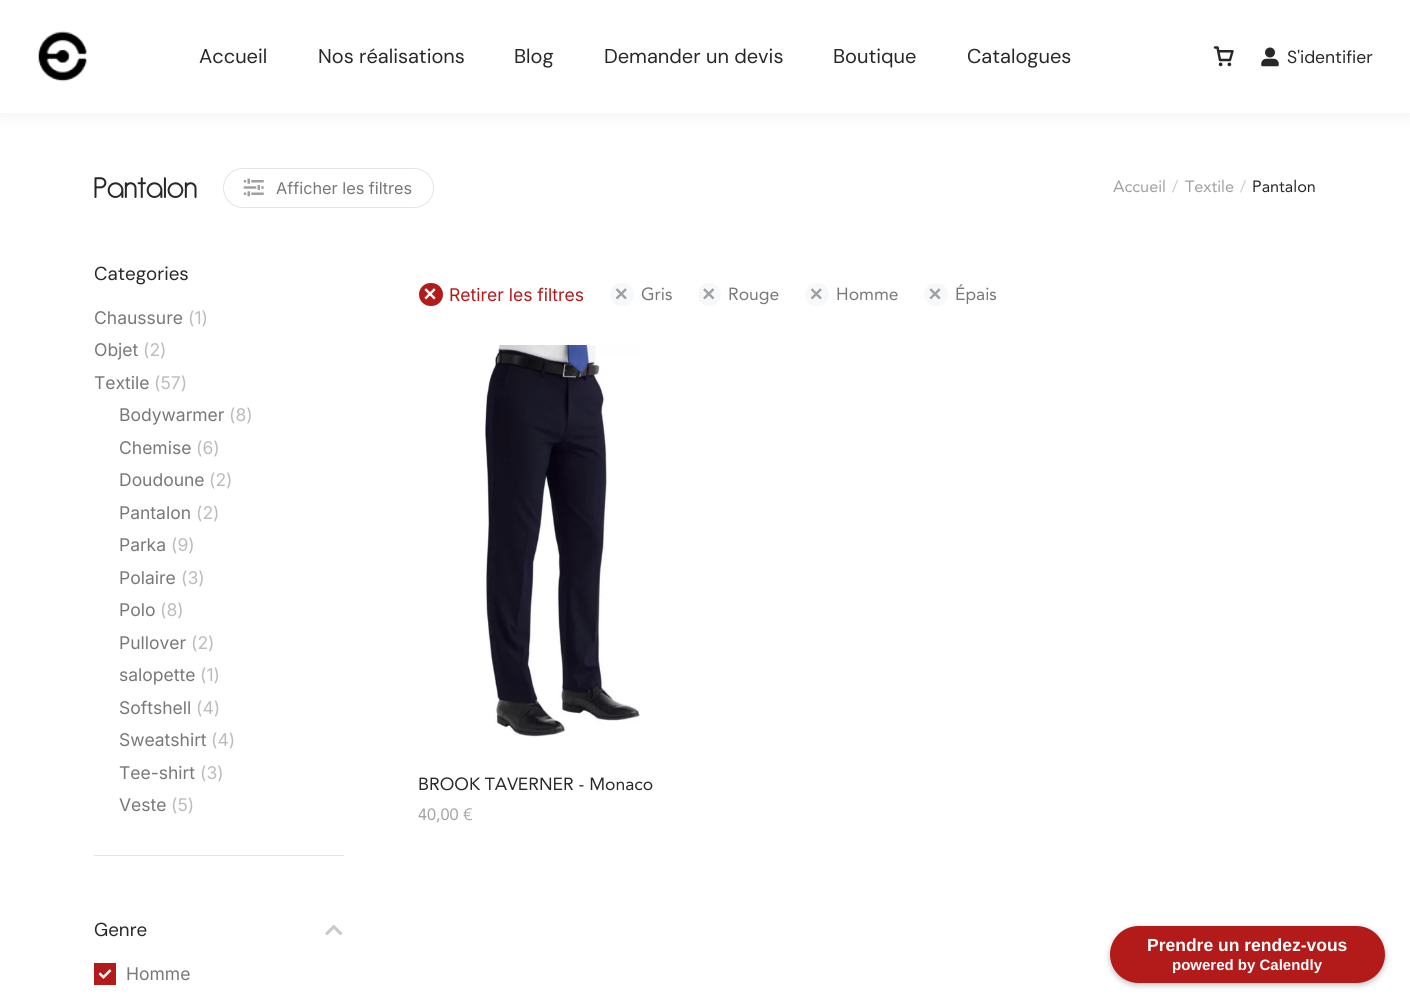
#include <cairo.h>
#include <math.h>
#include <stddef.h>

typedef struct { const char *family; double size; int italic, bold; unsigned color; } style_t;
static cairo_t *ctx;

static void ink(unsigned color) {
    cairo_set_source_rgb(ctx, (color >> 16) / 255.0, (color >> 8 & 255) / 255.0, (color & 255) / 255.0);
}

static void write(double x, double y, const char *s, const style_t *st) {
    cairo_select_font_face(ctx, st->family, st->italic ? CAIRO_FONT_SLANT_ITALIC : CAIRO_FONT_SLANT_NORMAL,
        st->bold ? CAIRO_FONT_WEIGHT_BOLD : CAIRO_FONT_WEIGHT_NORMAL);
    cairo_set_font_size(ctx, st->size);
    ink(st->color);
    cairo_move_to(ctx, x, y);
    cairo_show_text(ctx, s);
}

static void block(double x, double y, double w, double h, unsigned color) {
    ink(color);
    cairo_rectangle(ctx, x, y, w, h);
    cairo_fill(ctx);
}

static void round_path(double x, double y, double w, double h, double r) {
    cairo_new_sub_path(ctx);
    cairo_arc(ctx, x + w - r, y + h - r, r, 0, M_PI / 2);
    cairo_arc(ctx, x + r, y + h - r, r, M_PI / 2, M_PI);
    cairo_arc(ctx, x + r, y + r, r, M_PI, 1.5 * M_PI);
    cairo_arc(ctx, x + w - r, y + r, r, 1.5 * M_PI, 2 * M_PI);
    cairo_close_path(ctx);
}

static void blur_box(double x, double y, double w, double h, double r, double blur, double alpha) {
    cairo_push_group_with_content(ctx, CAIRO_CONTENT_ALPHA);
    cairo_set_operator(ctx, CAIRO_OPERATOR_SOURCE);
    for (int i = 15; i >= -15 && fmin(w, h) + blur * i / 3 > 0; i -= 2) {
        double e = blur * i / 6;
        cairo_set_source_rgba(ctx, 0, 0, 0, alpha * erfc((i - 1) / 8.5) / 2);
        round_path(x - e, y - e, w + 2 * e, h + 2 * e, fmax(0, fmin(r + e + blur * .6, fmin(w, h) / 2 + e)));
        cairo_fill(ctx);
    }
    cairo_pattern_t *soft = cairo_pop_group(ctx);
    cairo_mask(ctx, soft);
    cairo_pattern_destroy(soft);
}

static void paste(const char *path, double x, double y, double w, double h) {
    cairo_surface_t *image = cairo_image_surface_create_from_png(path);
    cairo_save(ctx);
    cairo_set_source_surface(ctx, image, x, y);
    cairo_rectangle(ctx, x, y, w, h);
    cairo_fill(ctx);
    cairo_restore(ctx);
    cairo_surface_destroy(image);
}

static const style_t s1 = {"DM Sans", 20, 0, 0, 0x282828};
static const style_t s2 = {"DM Sans", 17.5, 0, 0, 0x282828};
static const style_t s3 = {"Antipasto", 32.5, 0, 0, 0x282828};
static const style_t s4 = {"Inter", 16.25, 0, 0, 0x787878};
static const style_t s5 = {"Avenir", 16.25, 0, 0, 0xa0a0a0};
static const style_t s6 = {"Avenir", 16.25, 0, 0, 0xc8cacb};
static const style_t s7 = {"Avenir", 16.25, 0, 0, 0x282828};
static const style_t s8 = {"DM Sans", 18.75, 0, 0, 0x282828};
static const style_t s9 = {"Inter", 17.5, 0, 0, 0x787878};
static const style_t s10 = {"Inter", 17.5, 0, 0, 0xbcbcbc};
static const style_t s11 = {"Inter", 17.5, 0, 0, 0xb31b1b};
static const style_t s12 = {"Avenir", 17.5, 0, 0, 0x787878};
static const style_t s13 = {"Avenir", 17.5, 0, 0, 0x282828};
static const style_t s14 = {"Liberation Sans", 17.5, 0, 1, 0xffffff};
static const style_t s15 = {"Liberation Sans", 15, 0, 1, 0xffffff};

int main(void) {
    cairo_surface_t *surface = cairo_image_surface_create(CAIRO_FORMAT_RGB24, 1410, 1001);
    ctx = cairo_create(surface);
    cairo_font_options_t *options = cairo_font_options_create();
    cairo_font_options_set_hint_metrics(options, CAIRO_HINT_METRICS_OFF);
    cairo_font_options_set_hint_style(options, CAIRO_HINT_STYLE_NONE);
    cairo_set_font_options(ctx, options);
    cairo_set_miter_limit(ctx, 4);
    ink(0xffffff);
    cairo_paint(ctx);
    ink(0x000000);
    blur_box(-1, -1, 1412, 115, 0, 9.5, 0.07);
    block(0, 0, 1410, 113, 0xffffff);
    paste("pic1.png", 38, 31, 49, 51);
    write(199, 63, "Accueil", &s1);
    write(318, 63, "Nos réalisations", &s1);
    write(514, 63, "Blog", &s1);
    write(604, 63, "Demander un devis", &s1);
    write(833, 63, "Boutique", &s1);
    write(967, 63, "Catalogues", &s1);
    paste("pic2.png", 1213, 46, 21, 21);
    paste("pic3.png", 1261, 47, 18, 20);
    write(1287, 63, "S'identifier", &s2);
    write(94, 198, "Pantalon", &s3);
    round_path(223.5, 168.5, 210, 39, 19.5);
    ink(0xe0e5e7);
    cairo_set_line_width(ctx, 1);
    cairo_stroke(ctx);
    paste("pic4.png", 243, 178, 21, 19);
    write(276, 194, "Afficher les filtres", &s4);
    write(1113, 192, "Accueil", &s5);
    write(1172, 192, "/", &s6);
    write(1185, 192, "Textile", &s5);
    write(1240, 192, "/", &s6);
    write(1252, 192, "Pantalon", &s7);
    block(94, 855, 250, 1, 0xe0e5e7);
    write(94, 280, "Categories", &s8);
    write(94, 324, "Chaussure", &s9);
    write(188, 324, "(1)", &s10);
    write(94, 356, "Objet", &s9);
    write(143, 356, "(2)", &s10);
    write(94, 389, "Textile", &s9);
    write(154, 389, "(57)", &s10);
    write(119, 421, "Bodywarmer", &s9);
    write(229, 421, "(8)", &s10);
    write(119, 454, "Chemise", &s9);
    write(196, 454, "(6)", &s10);
    write(119, 486, "Doudoune", &s9);
    write(209, 486, "(2)", &s10);
    write(119, 519, "Pantalon", &s9);
    write(196, 519, "(2)", &s10);
    write(119, 551, "Parka", &s9);
    write(171, 551, "(9)", &s10);
    write(119, 584, "Polaire", &s9);
    write(181, 584, "(3)", &s10);
    write(119, 616, "Polo", &s9);
    write(160, 616, "(8)", &s10);
    write(119, 649, "Pullover", &s9);
    write(191, 649, "(2)", &s10);
    write(119, 681, "salopette", &s9);
    write(200, 681, "(1)", &s10);
    write(119, 714, "Softshell", &s9);
    write(196, 714, "(4)", &s10);
    write(119, 746, "Sweatshirt", &s9);
    write(211, 746, "(4)", &s10);
    write(119, 779, "Tee-shirt", &s9);
    write(200, 779, "(3)", &s10);
    write(119, 811, "Veste", &s9);
    write(171, 811, "(5)", &s10);
    write(94, 936, "Genre", &s8);
    paste("pic5.png", 325, 924, 18, 12);
    block(94, 963, 22, 22, 0xb31b1b);
    paste("pic6.png", 98, 969, 14, 10);
    write(126, 980, "Homme", &s9);
    ink(0xb31b1b);
    round_path(419, 283, 24, 23, 11.5);
    cairo_fill(ctx);
    paste("pic7.png", 424, 288, 12, 12);
    write(449, 301, "Retirer les filtres", &s11);
    ink(0xf6f8f9);
    round_path(610, 283, 24, 23, 11.5);
    cairo_fill(ctx);
    paste("pic8.png", 615, 288, 12, 12);
    write(641, 300, "Gris", &s12);
    ink(0xf6f8f9);
    cairo_new_path(ctx);
    cairo_arc(ctx, 709.5, 294.5, 11.5, 0, 2 * M_PI);
    cairo_fill(ctx);
    paste("pic9.png", 703, 288, 12, 12);
    write(728, 300, "Rouge", &s12);
    ink(0xf6f8f9);
    round_path(805, 283, 24, 23, 11.5);
    cairo_fill(ctx);
    paste("pic8.png", 810, 288, 12, 12);
    write(836, 300, "Homme", &s12);
    ink(0xf6f8f9);
    round_path(924, 283, 24, 23, 11.5);
    cairo_fill(ctx);
    paste("pic10.png", 929, 288, 12, 12);
    write(955, 300, "Épais", &s12);
    paste("pic11.png", 484, 345, 156, 392);
    write(418, 790, "BROOK TAVERNER - Monaco", &s13);
    write(418, 820, "40,00 €", &s5);
    ink(0x000000);
    blur_box(1110, 929, 275, 56, 28, 3, 0.25);
    ink(0xb31b1b);
    round_path(1110, 926, 275, 57, 28.5);
    cairo_fill(ctx);
    write(1147, 951, "Prendre un rendez-vous", &s14);
    write(1172, 970, "powered by Calendly", &s15);
    cairo_surface_write_to_png(surface, "screenshot.png");
    cairo_font_options_destroy(options);
    cairo_destroy(ctx);
    cairo_surface_destroy(surface);
    return 0;
}
